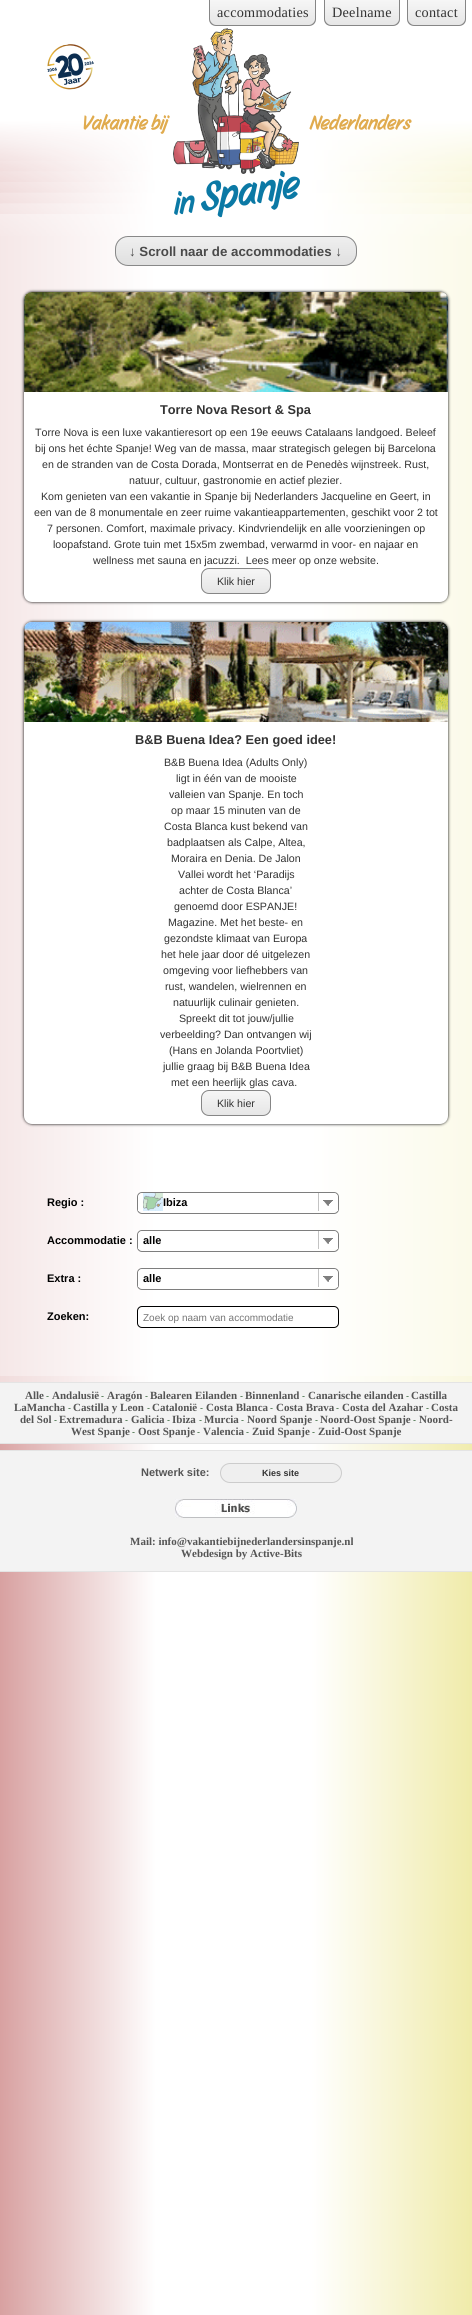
#include <cairo.h>
#include <math.h>
#include <stddef.h>

typedef struct { const char *family; double size; int italic, bold; unsigned color; } style_t;
static cairo_t *ctx;

static void ink(unsigned color) {
    cairo_set_source_rgb(ctx, (color >> 16) / 255.0, (color >> 8 & 255) / 255.0, (color & 255) / 255.0);
}

static void write(double x, double y, const char *s, const style_t *st) {
    cairo_select_font_face(ctx, st->family, st->italic ? CAIRO_FONT_SLANT_ITALIC : CAIRO_FONT_SLANT_NORMAL,
        st->bold ? CAIRO_FONT_WEIGHT_BOLD : CAIRO_FONT_WEIGHT_NORMAL);
    cairo_set_font_size(ctx, st->size);
    ink(st->color);
    cairo_move_to(ctx, x, y);
    cairo_show_text(ctx, s);
}

static void write_spaced(double x, double y, const char *s, double letter, double word) {
    cairo_move_to(ctx, x, y);
    while (*s) {
        char ch[5] = {0};
        int n = 0;
        do ch[n++] = *s++; while ((*s & 0xC0) == 0x80);
        cairo_show_text(ctx, ch);
        cairo_rel_move_to(ctx, letter + word * (*ch == ' '), 0);
    }
}

static void block(double x, double y, double w, double h, unsigned color) {
    ink(color);
    cairo_rectangle(ctx, x, y, w, h);
    cairo_fill(ctx);
}

static void round_path(double x, double y, double w, double h, double r) {
    cairo_new_sub_path(ctx);
    cairo_arc(ctx, x + w - r, y + h - r, r, 0, M_PI / 2);
    cairo_arc(ctx, x + r, y + h - r, r, M_PI / 2, M_PI);
    cairo_arc(ctx, x + r, y + r, r, M_PI, 1.5 * M_PI);
    cairo_arc(ctx, x + w - r, y + r, r, 1.5 * M_PI, 2 * M_PI);
    cairo_close_path(ctx);
}

static void blur_box(double x, double y, double w, double h, double r, double blur, double alpha) {
    cairo_push_group_with_content(ctx, CAIRO_CONTENT_ALPHA);
    cairo_set_operator(ctx, CAIRO_OPERATOR_SOURCE);
    for (int i = 15; i >= -15 && fmin(w, h) + blur * i / 3 > 0; i -= 2) {
        double e = blur * i / 6;
        cairo_set_source_rgba(ctx, 0, 0, 0, alpha * erfc((i - 1) / 8.5) / 2);
        round_path(x - e, y - e, w + 2 * e, h + 2 * e, fmax(0, fmin(r + e + blur * .6, fmin(w, h) / 2 + e)));
        cairo_fill(ctx);
    }
    cairo_pattern_t *soft = cairo_pop_group(ctx);
    cairo_mask(ctx, soft);
    cairo_pattern_destroy(soft);
}

static void paste(const char *path, double x, double y, double w, double h) {
    cairo_surface_t *image = cairo_image_surface_create_from_png(path);
    cairo_save(ctx);
    cairo_set_source_surface(ctx, image, x, y);
    cairo_rectangle(ctx, x, y, w, h);
    cairo_fill(ctx);
    cairo_restore(ctx);
    cairo_surface_destroy(image);
}

static const style_t s1 = {"Story Script", 20, 0, 1, 0xe0ab4e};
static const style_t s2 = {"Story Script", 32, 0, 1, 0x0b79a5};
static const style_t s3 = {"Story Script", 40, 0, 1, 0x0b79a5};
static const style_t s4 = {"Liberation Sans", 13.3, 0, 1, 0x4a4a4a};
static const style_t s5 = {"Liberation Sans", 12.75, 0, 1, 0x333333};
static const style_t s6 = {"Liberation Sans", 10.65, 0, 0, 0x333333};
static const style_t s7 = {"Liberation Sans", 11, 0, 1, 0x000000};
static const style_t s8 = {"Liberation Sans", 10, 0, 0, 0x757575};
static const style_t s9 = {"Liberation Serif", 11, 0, 1, 0x555555};
static const style_t s10 = {"Liberation Sans", 9, 0, 0, 0x26592a};
static const style_t s11 = {"Liberation Sans", 11, 0, 1, 0x555555};
static const style_t s12 = {"Liberation Sans", 9, 0, 1, 0x333333};

int main(void) {
    cairo_surface_t *surface = cairo_image_surface_create(CAIRO_FORMAT_RGB24, 472, 2315);
    ctx = cairo_create(surface);
    cairo_font_options_t *options = cairo_font_options_create();
    cairo_font_options_set_hint_metrics(options, CAIRO_HINT_METRICS_OFF);
    cairo_font_options_set_hint_style(options, CAIRO_HINT_STYLE_NONE);
    cairo_set_font_options(ctx, options);
    cairo_set_miter_limit(ctx, 4);
    cairo_pattern_t *gradient;
    ink(0xffffff);
    cairo_paint(ctx);
    gradient = cairo_pattern_create_linear(0, 1158, 472, 1158);
    cairo_pattern_add_color_stop_rgba(gradient, 0, 0.847, 0.631, 0.631, 1);
    cairo_pattern_add_color_stop_rgba(gradient, 0.33, 1, 1, 1, 1);
    cairo_pattern_add_color_stop_rgba(gradient, 0.66, 1, 1, 1, 1);
    cairo_pattern_add_color_stop_rgba(gradient, 1, 0.941, 0.922, 0.667, 1);
    cairo_set_source(ctx, gradient);
    cairo_pattern_destroy(gradient);
    cairo_rectangle(ctx, 0, 121, 472, 2194);
    cairo_fill(ctx);
    gradient = cairo_pattern_create_linear(236, 0, 236, 240);
    cairo_pattern_add_color_stop_rgba(gradient, 0.5, 1, 1, 1, 1);
    cairo_pattern_add_color_stop_rgba(gradient, 1, 1, 1, 1, 0);
    cairo_set_source(ctx, gradient);
    cairo_pattern_destroy(gradient);
    cairo_rectangle(ctx, 0, 121, 472, 115);
    cairo_fill(ctx);
    cairo_save(ctx);
    cairo_new_path(ctx);
    cairo_move_to(ctx, 209, 0);
    cairo_line_to(ctx, 316, 0);
    cairo_line_to(ctx, 316, 19);
    cairo_curve_to(ctx, 316, 23, 313, 26, 309, 26);
    cairo_line_to(ctx, 216, 26);
    cairo_curve_to(ctx, 212, 26, 209, 23, 209, 19);
    cairo_close_path(ctx);
    cairo_clip(ctx);
    gradient = cairo_pattern_create_linear(263, 0, 263, 25);
    cairo_pattern_add_color_stop_rgba(gradient, 0, 0.965, 0.965, 0.965, 1);
    cairo_pattern_add_color_stop_rgba(gradient, 1, 0.902, 0.902, 0.902, 1);
    cairo_set_source(ctx, gradient);
    cairo_pattern_destroy(gradient);
    cairo_rectangle(ctx, 209, 0, 107, 25);
    cairo_fill(ctx);
    cairo_restore(ctx);
    ink(0x868686);
    cairo_set_fill_rule(ctx, CAIRO_FILL_RULE_EVEN_ODD);
    cairo_new_path(ctx);
    cairo_move_to(ctx, 209, 0);
    cairo_line_to(ctx, 316, 0);
    cairo_line_to(ctx, 316, 19);
    cairo_curve_to(ctx, 316, 23, 313, 26, 309, 26);
    cairo_line_to(ctx, 216, 26);
    cairo_curve_to(ctx, 212, 26, 209, 23, 209, 19);
    cairo_close_path(ctx);
    cairo_move_to(ctx, 210, 0);
    cairo_line_to(ctx, 315, 0);
    cairo_line_to(ctx, 315, 19);
    cairo_curve_to(ctx, 315, 22, 312, 25, 309, 25);
    cairo_line_to(ctx, 216, 25);
    cairo_curve_to(ctx, 213, 25, 210, 22, 210, 19);
    cairo_close_path(ctx);
    cairo_fill(ctx);
    cairo_select_font_face(ctx, "Liberation Serif", CAIRO_FONT_SLANT_NORMAL, CAIRO_FONT_WEIGHT_NORMAL);
    cairo_set_font_size(ctx, 14.25);
    ink(0x333333);
    write_spaced(217, 17, "accommodaties", 0.25, 0);
    cairo_save(ctx);
    cairo_set_fill_rule(ctx, CAIRO_FILL_RULE_WINDING);
    cairo_new_path(ctx);
    cairo_move_to(ctx, 324, 0);
    cairo_line_to(ctx, 400, 0);
    cairo_line_to(ctx, 400, 19);
    cairo_curve_to(ctx, 400, 23, 397, 26, 393, 26);
    cairo_line_to(ctx, 331, 26);
    cairo_curve_to(ctx, 327, 26, 324, 23, 324, 19);
    cairo_close_path(ctx);
    cairo_clip(ctx);
    gradient = cairo_pattern_create_linear(362, 0, 362, 25);
    cairo_pattern_add_color_stop_rgba(gradient, 0, 0.965, 0.965, 0.965, 1);
    cairo_pattern_add_color_stop_rgba(gradient, 1, 0.902, 0.902, 0.902, 1);
    cairo_set_source(ctx, gradient);
    cairo_pattern_destroy(gradient);
    cairo_rectangle(ctx, 324, 0, 76, 25);
    cairo_fill(ctx);
    cairo_restore(ctx);
    ink(0x868686);
    cairo_new_path(ctx);
    cairo_move_to(ctx, 324, 0);
    cairo_line_to(ctx, 400, 0);
    cairo_line_to(ctx, 400, 19);
    cairo_curve_to(ctx, 400, 23, 397, 26, 393, 26);
    cairo_line_to(ctx, 331, 26);
    cairo_curve_to(ctx, 327, 26, 324, 23, 324, 19);
    cairo_close_path(ctx);
    cairo_move_to(ctx, 325, 0);
    cairo_line_to(ctx, 399, 0);
    cairo_line_to(ctx, 399, 19);
    cairo_curve_to(ctx, 399, 22, 396, 25, 393, 25);
    cairo_line_to(ctx, 331, 25);
    cairo_curve_to(ctx, 328, 25, 325, 22, 325, 19);
    cairo_close_path(ctx);
    cairo_fill(ctx);
    ink(0x333333);
    write_spaced(332, 17, "Deelname", 0.25, 0);
    cairo_save(ctx);
    cairo_set_fill_rule(ctx, CAIRO_FILL_RULE_WINDING);
    cairo_new_path(ctx);
    cairo_move_to(ctx, 407, 0);
    cairo_line_to(ctx, 466, 0);
    cairo_line_to(ctx, 466, 19);
    cairo_curve_to(ctx, 466, 23, 463, 26, 459, 26);
    cairo_line_to(ctx, 414, 26);
    cairo_curve_to(ctx, 410, 26, 407, 23, 407, 19);
    cairo_close_path(ctx);
    cairo_clip(ctx);
    gradient = cairo_pattern_create_linear(437, 0, 437, 25);
    cairo_pattern_add_color_stop_rgba(gradient, 0, 0.965, 0.965, 0.965, 1);
    cairo_pattern_add_color_stop_rgba(gradient, 1, 0.902, 0.902, 0.902, 1);
    cairo_set_source(ctx, gradient);
    cairo_pattern_destroy(gradient);
    cairo_rectangle(ctx, 407, 0, 59, 25);
    cairo_fill(ctx);
    cairo_restore(ctx);
    ink(0x868686);
    cairo_new_path(ctx);
    cairo_move_to(ctx, 407, 0);
    cairo_line_to(ctx, 466, 0);
    cairo_line_to(ctx, 466, 19);
    cairo_curve_to(ctx, 466, 23, 463, 26, 459, 26);
    cairo_line_to(ctx, 414, 26);
    cairo_curve_to(ctx, 410, 26, 407, 23, 407, 19);
    cairo_close_path(ctx);
    cairo_move_to(ctx, 408, 0);
    cairo_line_to(ctx, 465, 0);
    cairo_line_to(ctx, 465, 19);
    cairo_curve_to(ctx, 465, 22, 462, 25, 459, 25);
    cairo_line_to(ctx, 414, 25);
    cairo_curve_to(ctx, 411, 25, 408, 22, 408, 19);
    cairo_close_path(ctx);
    cairo_fill(ctx);
    ink(0x333333);
    write_spaced(415, 17, "contact", 0.25, 0);
    cairo_save(ctx);
    cairo_new_path(ctx);
    cairo_move_to(ctx, 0, 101);
    cairo_line_to(ctx, 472, 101);
    cairo_line_to(ctx, 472, 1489);
    cairo_line_to(ctx, 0, 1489);
    cairo_close_path(ctx);
    cairo_move_to(ctx, 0, 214);
    cairo_line_to(ctx, 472, 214);
    cairo_line_to(ctx, 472, 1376);
    cairo_line_to(ctx, 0, 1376);
    cairo_close_path(ctx);
    cairo_clip(ctx);
    ink(0xffffff);
    blur_box(-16, 198, 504, 1194, 0, 32, 1);
    cairo_restore(ctx);
    paste("pic1.png", 173, 28, 126, 146);
    paste("pic2.png", 47, 44, 47, 46);
    write(81, 129, "Vakantie bij", &s1);
    write(310, 129, "Nederlanders", &s1);
    cairo_set_source_rgba(ctx, 1, 1, 1, 0.75);
    cairo_rectangle(ctx, 0, 214, 472, 1162);
    cairo_fill(ctx);
    cairo_save(ctx);
    cairo_translate(ctx, 175, 214);
    cairo_rotate(ctx, -8 * M_PI / 180);
    write(0, 0, "in", &s2);
    cairo_restore(ctx);
    cairo_save(ctx);
    cairo_translate(ctx, 202, 210);
    cairo_rotate(ctx, -8 * M_PI / 180);
    write(0, 0, "Spanje", &s3);
    cairo_restore(ctx);
    cairo_save(ctx);
    cairo_set_fill_rule(ctx, CAIRO_FILL_RULE_WINDING);
    round_path(115, 236, 242, 30, 13);
    cairo_clip(ctx);
    gradient = cairo_pattern_create_linear(236, 237, 236, 265);
    cairo_pattern_add_color_stop_rgba(gradient, 0, 0.937, 0.937, 0.937, 1);
    cairo_pattern_add_color_stop_rgba(gradient, 1, 0.878, 0.878, 0.878, 1);
    cairo_set_source(ctx, gradient);
    cairo_pattern_destroy(gradient);
    cairo_rectangle(ctx, 115, 237, 242, 28);
    cairo_fill(ctx);
    cairo_restore(ctx);
    round_path(115.5, 236.5, 241, 29, 12.5);
    ink(0x888888);
    cairo_set_line_width(ctx, 1);
    cairo_stroke(ctx);
    write(129, 256, "↓ Scroll naar de accommodaties ↓", &s4);
    ink(0x000000);
    blur_box(24, 292, 424, 310, 8, 1.5, 1);
    ink(0xffffff);
    round_path(24, 292, 424, 310, 8);
    cairo_fill(ctx);
    paste("pic3.png", 24, 292, 424, 100);
    write(160, 414, "Torre Nova Resort & Spa", &s5);
    write(35, 436, "Torre Nova is een luxe vakantieresort op een 19e eeuws Catalaans landgoed. Beleef", &s6);
    write(35, 452, "bij ons het échte Spanje! Weg van de massa, maar strategisch gelegen bij Barcelona", &s6);
    write(42, 468, "en de stranden van de Costa Dorada, Montserrat en de Penedès wijnstreek. Rust,", &s6);
    write(129, 484, "natuur, cultuur, gastronomie en actief plezier.", &s6);
    write(41, 500, "Kom genieten van een vakantie in Spanje bij Nederlanders Jacqueline en Geert, in", &s6);
    write(34, 516, "een van de 8 monumentale en zeer ruime vakantieappartementen, geschikt voor 2 tot", &s6);
    write(47, 532, "7 personen. Comfort, maximale privacy. Kindvriendelijk en alle voorzieningen op", &s6);
    write(53, 548, "loopafstand. Grote tuin met 15x5m zwembad, verwarmd in voor- en najaar en", &s6);
    write(93, 564, "wellness met sauna en jacuzzi.  Lees meer op onze website.", &s6);
    cairo_save(ctx);
    cairo_set_fill_rule(ctx, CAIRO_FILL_RULE_WINDING);
    round_path(201, 568, 70, 26, 8);
    cairo_clip(ctx);
    gradient = cairo_pattern_create_linear(236, 569, 236, 593);
    cairo_pattern_add_color_stop_rgba(gradient, 0, 0.965, 0.965, 0.965, 1);
    cairo_pattern_add_color_stop_rgba(gradient, 1, 0.902, 0.902, 0.902, 1);
    cairo_set_source(ctx, gradient);
    cairo_pattern_destroy(gradient);
    cairo_rectangle(ctx, 201, 569, 70, 24);
    cairo_fill(ctx);
    cairo_restore(ctx);
    round_path(201.5, 568.5, 69, 25, 7.5);
    ink(0x868686);
    cairo_stroke(ctx);
    write(217, 585, "Klik hier", &s6);
    ink(0x000000);
    blur_box(24, 622, 424, 502, 8, 1.5, 1);
    ink(0xffffff);
    round_path(24, 622, 424, 502, 8);
    cairo_fill(ctx);
    paste("pic4.png", 24, 622, 424, 100);
    write(135, 744, "B&B Buena Idea? Een goed idee!", &s5);
    write(164, 766, "B&B Buena Idea (Adults Only)", &s6);
    write(176, 782, "ligt in één van de mooiste", &s6);
    write(169, 798, "valleien van Spanje. En toch", &s6);
    write(171, 814, "op maar 15 minuten van de", &s6);
    write(164, 830, "Costa Blanca kust bekend van", &s6);
    write(167, 846, "badplaatsen als Calpe, Altea,", &s6);
    write(171, 862, "Moraira en Denia. De Jalon", &s6);
    write(178, 878, "Vallei wordt het ‘Paradijs", &s6);
    write(179, 894, "achter de Costa Blanca’", &s6);
    write(174, 910, "genoemd door ESPANJE!", &s6);
    write(168, 926, "Magazine. Met het beste- en", &s6);
    write(164, 942, "gezondste klimaat van Europa", &s6);
    write(161, 958, "het hele jaar door dé uitgelezen", &s6);
    write(163, 974, "omgeving voor liefhebbers van", &s6);
    write(165, 990, "rust, wandelen, wielrennen en", &s6);
    write(173, 1006, "natuurlijk culinair genieten.", &s6);
    write(179, 1022, "Spreekt dit tot jouw/jullie", &s6);
    write(160, 1038, "verbeelding? Dan ontvangen wij", &s6);
    write(169, 1054, "(Hans en Jolanda Poortvliet)", &s6);
    write(163, 1070, "jullie graag bij B&B Buena Idea", &s6);
    write(171, 1086, "met een heerlijk glas cava.", &s6);
    cairo_save(ctx);
    cairo_set_fill_rule(ctx, CAIRO_FILL_RULE_WINDING);
    round_path(201, 1090, 70, 26, 8);
    cairo_clip(ctx);
    gradient = cairo_pattern_create_linear(236, 1091, 236, 1115);
    cairo_pattern_add_color_stop_rgba(gradient, 0, 0.965, 0.965, 0.965, 1);
    cairo_pattern_add_color_stop_rgba(gradient, 1, 0.902, 0.902, 0.902, 1);
    cairo_set_source(ctx, gradient);
    cairo_pattern_destroy(gradient);
    cairo_rectangle(ctx, 201, 1091, 70, 24);
    cairo_fill(ctx);
    cairo_restore(ctx);
    round_path(201.5, 1090.5, 69, 25, 7.5);
    ink(0x868686);
    cairo_stroke(ctx);
    write(217, 1107, "Klik hier", &s6);
    write(47, 1206, "Regio :", &s7);
    round_path(137.5, 1192.5, 201, 21, 4.5);
    ink(0x7e7e7e);
    cairo_stroke(ctx);
    ink(0xffffff);
    cairo_new_path(ctx);
    cairo_move_to(ctx, 143, 1193);
    cairo_line_to(ctx, 333, 1193);
    cairo_curve_to(ctx, 336, 1193, 338, 1195, 338, 1198);
    cairo_line_to(ctx, 338, 1211);
    cairo_line_to(ctx, 138, 1211);
    cairo_line_to(ctx, 138, 1198);
    cairo_curve_to(ctx, 138, 1195, 140, 1193, 143, 1193);
    cairo_close_path(ctx);
    cairo_fill(ctx);
    paste("pic5.png", 143, 1193, 20, 18);
    write(163, 1206, "Ibiza", &s7);
    block(318, 1193, 1, 18, 0xc3c3c3);
    paste("pic6.png", 323, 1200, 10, 6);
    write(47, 1244, "Accommodatie :", &s7);
    round_path(137.5, 1230.5, 201, 21, 4.5);
    ink(0x7e7e7e);
    cairo_stroke(ctx);
    ink(0xffffff);
    cairo_new_path(ctx);
    cairo_move_to(ctx, 143, 1231);
    cairo_line_to(ctx, 333, 1231);
    cairo_curve_to(ctx, 336, 1231, 338, 1233, 338, 1236);
    cairo_line_to(ctx, 338, 1249);
    cairo_line_to(ctx, 138, 1249);
    cairo_line_to(ctx, 138, 1236);
    cairo_curve_to(ctx, 138, 1233, 140, 1231, 143, 1231);
    cairo_close_path(ctx);
    cairo_fill(ctx);
    write(143, 1244, "alle", &s7);
    block(318, 1231, 1, 18, 0xc3c3c3);
    paste("pic6.png", 323, 1238, 10, 6);
    write(47, 1282, "Extra :", &s7);
    round_path(137.5, 1268.5, 201, 21, 4.5);
    ink(0x7e7e7e);
    cairo_stroke(ctx);
    ink(0xffffff);
    cairo_new_path(ctx);
    cairo_move_to(ctx, 143, 1269);
    cairo_line_to(ctx, 333, 1269);
    cairo_curve_to(ctx, 336, 1269, 338, 1271, 338, 1274);
    cairo_line_to(ctx, 338, 1287);
    cairo_line_to(ctx, 138, 1287);
    cairo_line_to(ctx, 138, 1274);
    cairo_curve_to(ctx, 138, 1271, 140, 1269, 143, 1269);
    cairo_close_path(ctx);
    cairo_fill(ctx);
    write(143, 1282, "alle", &s7);
    block(318, 1269, 1, 18, 0xc3c3c3);
    paste("pic6.png", 323, 1276, 10, 6);
    write(47, 1320, "Zoeken:", &s7);
    ink(0xffffff);
    round_path(137.5, 1306.5, 201, 21, 4.5);
    cairo_fill_preserve(ctx);
    ink(0x000000);
    cairo_stroke(ctx);
    write(143, 1321, "Zoek op naam van accommodatie", &s8);
    block(0, 1383, 472, 60, 0xf3f3f3);
    block(0, 1382, 472, 1, 0xe4e4e4);
    block(0, 1443, 472, 1, 0xe4e4e4);
    write(25, 1399, "Alle", &s9);
    write(46, 1399, "-", &s10);
    write(52, 1399, "Andalusië", &s9);
    write(101, 1399, "-", &s10);
    write(107, 1399, "Aragón", &s9);
    write(145, 1399, "-", &s10);
    write(150, 1399, "Balearen Eilanden", &s9);
    write(240, 1399, "-", &s10);
    write(245, 1399, "Binnenland", &s9);
    write(302, 1399, "-", &s10);
    write(308, 1399, "Canarische eilanden", &s9);
    write(406, 1399, "-", &s10);
    write(411, 1399, "Castilla", &s9);
    write(14, 1411, "LaMancha", &s9);
    write(68, 1411, "-", &s10);
    write(73, 1411, "Castilla y Leon", &s9);
    write(147, 1411, "-", &s10);
    write(152, 1411, "Catalonië", &s9);
    write(200, 1411, "-", &s10);
    write(206, 1411, "Costa Blanca", &s9);
    write(270, 1411, "-", &s10);
    write(276, 1411, "Costa Brava", &s9);
    write(336, 1411, "-", &s10);
    write(342, 1411, "Costa del Azahar", &s9);
    write(426, 1411, "-", &s10);
    write(431, 1411, "Costa", &s9);
    write(20, 1423, "del Sol", &s9);
    write(54, 1423, "-", &s10);
    write(59, 1423, "Extremadura", &s9);
    write(125, 1423, "-", &s10);
    write(131, 1423, "Galicia", &s9);
    write(167, 1423, "-", &s10);
    write(172, 1423, "Ibiza", &s9);
    write(199, 1423, "-", &s10);
    write(204, 1423, "Murcia", &s9);
    write(241, 1423, "-", &s10);
    write(247, 1423, "Noord Spanje", &s9);
    write(315, 1423, "-", &s10);
    write(320, 1423, "Noord-Oost Spanje", &s9);
    write(413, 1423, "-", &s10);
    write(419, 1423, "Noord-", &s9);
    write(71, 1435, "West Spanje", &s9);
    write(132, 1435, "-", &s10);
    write(138, 1435, "Oost Spanje", &s9);
    write(197, 1435, "-", &s10);
    write(203, 1435, "Valencia", &s9);
    write(246, 1435, "-", &s10);
    write(252, 1435, "Zuid Spanje", &s9);
    write(312, 1435, "-", &s10);
    write(318, 1435, "Zuid-Oost Spanje", &s9);
    block(0, 1451, 472, 120, 0xf3f3f3);
    block(0, 1450, 472, 1, 0xe4e4e4);
    block(0, 1571, 472, 1, 0xe4e4e4);
    write(141, 1476, "Netwerk site:", &s11);
    ink(0xefefef);
    round_path(220.5, 1463.5, 121, 19, 9.5);
    cairo_fill_preserve(ctx);
    ink(0xcccccc);
    cairo_stroke(ctx);
    write(262, 1476, "Kies site", &s12);
    paste("pic7.png", 175, 1499, 122, 19);
    write(130, 1545, "Mail: info@vakantiebijnederlandersinspanje.nl", &s9);
    write(181, 1557, "Webdesign by Active-Bits", &s9);
    cairo_surface_write_to_png(surface, "screenshot.png");
    cairo_font_options_destroy(options);
    cairo_destroy(ctx);
    cairo_surface_destroy(surface);
    return 0;
}
